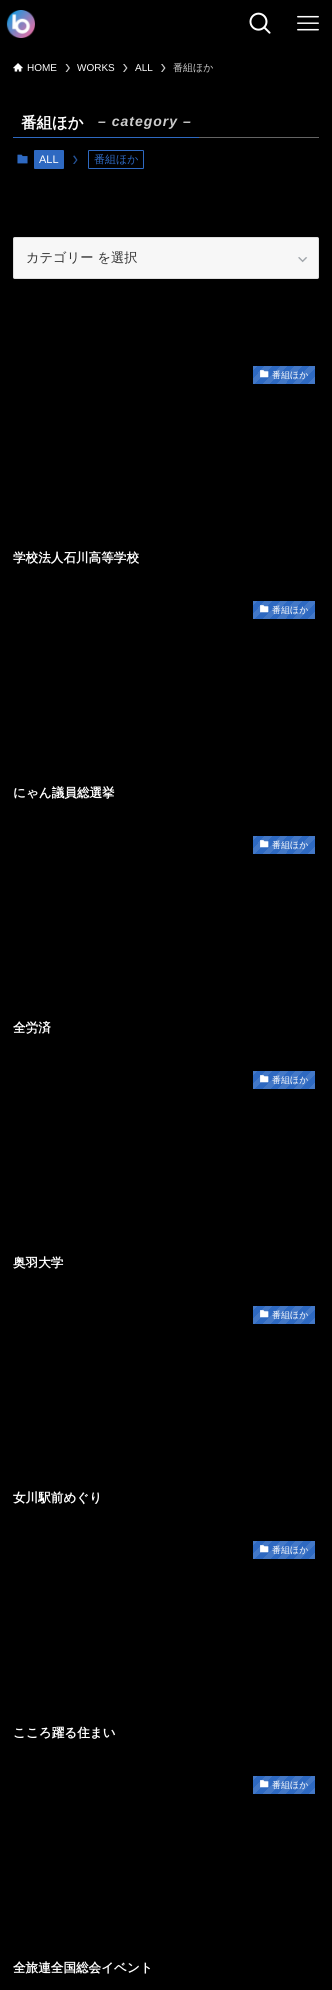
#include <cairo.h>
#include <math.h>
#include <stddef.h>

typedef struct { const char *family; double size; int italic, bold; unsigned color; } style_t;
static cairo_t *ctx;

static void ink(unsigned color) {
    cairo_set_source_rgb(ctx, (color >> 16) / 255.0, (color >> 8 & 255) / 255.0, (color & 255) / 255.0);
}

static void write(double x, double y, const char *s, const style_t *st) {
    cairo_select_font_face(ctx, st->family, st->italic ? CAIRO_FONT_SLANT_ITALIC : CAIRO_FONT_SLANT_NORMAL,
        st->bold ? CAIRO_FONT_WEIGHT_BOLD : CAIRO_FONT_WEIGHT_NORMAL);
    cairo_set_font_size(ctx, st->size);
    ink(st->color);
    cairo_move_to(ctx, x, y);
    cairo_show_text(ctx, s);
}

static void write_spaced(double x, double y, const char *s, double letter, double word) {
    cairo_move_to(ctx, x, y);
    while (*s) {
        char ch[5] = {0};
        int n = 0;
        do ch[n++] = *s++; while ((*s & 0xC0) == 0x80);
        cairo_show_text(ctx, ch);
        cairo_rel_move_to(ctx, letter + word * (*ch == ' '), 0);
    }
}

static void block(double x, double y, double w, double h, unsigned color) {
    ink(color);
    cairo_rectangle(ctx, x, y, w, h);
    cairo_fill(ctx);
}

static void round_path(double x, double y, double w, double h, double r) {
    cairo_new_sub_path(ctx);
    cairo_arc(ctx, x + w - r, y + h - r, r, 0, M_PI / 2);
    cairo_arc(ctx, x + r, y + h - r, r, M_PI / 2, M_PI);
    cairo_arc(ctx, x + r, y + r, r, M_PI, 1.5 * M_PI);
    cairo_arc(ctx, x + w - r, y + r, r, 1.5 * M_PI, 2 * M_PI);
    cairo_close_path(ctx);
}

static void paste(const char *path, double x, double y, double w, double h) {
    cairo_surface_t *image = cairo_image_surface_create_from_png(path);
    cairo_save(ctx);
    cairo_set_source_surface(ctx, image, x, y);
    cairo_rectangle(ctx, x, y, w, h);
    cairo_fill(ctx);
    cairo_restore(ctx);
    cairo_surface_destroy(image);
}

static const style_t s1 = {"Liberation Sans", 10, 0, 0, 0xffffff};
static const style_t s2 = {"WenQuanYi Zen Hei Medium", 10, 0, 0, 0xcccccc};
static const style_t s3 = {"WenQuanYi Zen Hei", 15.5, 0, 1, 0xffffff};
static const style_t s4 = {"Liberation Sans", 11, 0, 0, 0xffffff};
static const style_t s5 = {"WenQuanYi Zen Hei Medium", 11, 0, 0, 0x2e69c1};
static const style_t s6 = {"WenQuanYi Zen Hei Medium", 13.25, 0, 0, 0x333333};
static const style_t s7 = {"WenQuanYi Zen Hei Medium", 9, 0, 0, 0xffffff};
static const style_t s8 = {"WenQuanYi Zen Hei", 12.6, 0, 1, 0xffffff};

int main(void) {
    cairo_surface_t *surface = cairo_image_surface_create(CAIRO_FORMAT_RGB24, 332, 1990);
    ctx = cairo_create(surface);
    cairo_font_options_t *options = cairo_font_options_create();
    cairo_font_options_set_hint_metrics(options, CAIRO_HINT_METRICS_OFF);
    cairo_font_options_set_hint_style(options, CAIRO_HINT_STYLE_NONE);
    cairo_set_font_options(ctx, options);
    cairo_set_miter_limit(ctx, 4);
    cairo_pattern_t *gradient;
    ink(0x000000);
    cairo_paint(ctx);
    paste("pic1.png", 6, 10, 29, 28);
    paste("pic2.png", 249, 12, 22, 22);
    paste("pic3.png", 297, 15, 22, 16);
    paste("pic4.png", 13, 63, 10, 9);
    write(27, 71, "HOME", &s1);
    ink(0xcccccc);
    cairo_new_path(ctx);
    cairo_move_to(ctx, 67, 64);
    cairo_line_to(ctx, 65.5, 64);
    cairo_line_to(ctx, 68.5, 68);
    cairo_line_to(ctx, 65.5, 72);
    cairo_line_to(ctx, 67, 72);
    cairo_line_to(ctx, 70, 68);
    cairo_close_path(ctx);
    cairo_fill(ctx);
    write(77, 71, "WORKS", &s1);
    ink(0xcccccc);
    cairo_new_path(ctx);
    cairo_move_to(ctx, 124.5, 64);
    cairo_line_to(ctx, 123, 64);
    cairo_line_to(ctx, 126, 68);
    cairo_line_to(ctx, 123, 72);
    cairo_line_to(ctx, 124.5, 72);
    cairo_line_to(ctx, 127.5, 68);
    cairo_close_path(ctx);
    cairo_fill(ctx);
    write(135, 71, "ALL", &s1);
    ink(0xcccccc);
    cairo_new_path(ctx);
    cairo_move_to(ctx, 162.5, 64);
    cairo_line_to(ctx, 161, 64);
    cairo_line_to(ctx, 164, 68);
    cairo_line_to(ctx, 161, 72);
    cairo_line_to(ctx, 162.5, 72);
    cairo_line_to(ctx, 165.5, 68);
    cairo_close_path(ctx);
    cairo_fill(ctx);
    write(173, 71, "番組ほか", &s2);
    block(199, 137, 120, 1, 0x646464);
    block(13, 137, 186, 1, 0x2e69c1);
    write(21, 128, "番組ほか", &s3);
    cairo_select_font_face(ctx, "Liberation Sans", CAIRO_FONT_SLANT_ITALIC, CAIRO_FONT_WEIGHT_BOLD);
    cairo_set_font_size(ctx, 14);
    ink(0xcccccc);
    write_spaced(98, 126, "– category –", 1, 0);
    paste("pic5.png", 17, 154, 11, 10);
    ink(0x2e69c1);
    round_path(34, 150, 30, 19, 1);
    cairo_fill(ctx);
    write(39, 163, "ALL", &s4);
    ink(0x25549a);
    cairo_new_path(ctx);
    cairo_move_to(ctx, 74.5, 155.5);
    cairo_line_to(ctx, 73, 156);
    cairo_line_to(ctx, 76, 160);
    cairo_line_to(ctx, 73, 164);
    cairo_line_to(ctx, 74.5, 164);
    cairo_line_to(ctx, 77.5, 160);
    cairo_close_path(ctx);
    cairo_fill(ctx);
    round_path(88.5, 150.5, 55, 18, 0.5);
    ink(0x2e69c1);
    cairo_set_line_width(ctx, 1);
    cairo_stroke(ctx);
    write(94, 163, "番組ほか", &s5);
    ink(0xf7f7f7);
    round_path(13, 237, 306, 42, 2);
    cairo_fill(ctx);
    paste("pic6.png", 298, 257, 10, 6);
    round_path(13.5, 237.5, 305, 41, 1.5);
    cairo_set_source_rgba(ctx, 0.78, 0.78, 0.78, 0.5);
    cairo_stroke(ctx);
    write(26, 262, "カテゴリー を選択", &s6);
    gradient = cairo_pattern_create_linear(304, 395, 258, 350);
    cairo_pattern_add_color_stop_rgba(gradient, 0, 0.263, 0.471, 0.78, 1);
    cairo_pattern_add_color_stop_rgba(gradient, 0.08, 0.263, 0.471, 0.78, 1);
    cairo_pattern_add_color_stop_rgba(gradient, 0.08, 0.18, 0.412, 0.757, 1);
    cairo_pattern_add_color_stop_rgba(gradient, 0.17, 0.18, 0.412, 0.757, 1);
    cairo_pattern_add_color_stop_rgba(gradient, 0.17, 0.263, 0.471, 0.78, 1);
    cairo_pattern_add_color_stop_rgba(gradient, 0.25, 0.263, 0.471, 0.78, 1);
    cairo_pattern_add_color_stop_rgba(gradient, 0.25, 0.18, 0.412, 0.757, 1);
    cairo_pattern_add_color_stop_rgba(gradient, 0.33, 0.18, 0.412, 0.757, 1);
    cairo_pattern_add_color_stop_rgba(gradient, 0.33, 0.263, 0.471, 0.78, 1);
    cairo_pattern_add_color_stop_rgba(gradient, 0.42, 0.263, 0.471, 0.78, 1);
    cairo_pattern_add_color_stop_rgba(gradient, 0.42, 0.18, 0.412, 0.757, 1);
    cairo_pattern_add_color_stop_rgba(gradient, 0.5, 0.18, 0.412, 0.757, 1);
    cairo_pattern_add_color_stop_rgba(gradient, 0.5, 0.263, 0.471, 0.78, 1);
    cairo_pattern_add_color_stop_rgba(gradient, 0.58, 0.263, 0.471, 0.78, 1);
    cairo_pattern_add_color_stop_rgba(gradient, 0.58, 0.18, 0.412, 0.757, 1);
    cairo_pattern_add_color_stop_rgba(gradient, 0.67, 0.18, 0.412, 0.757, 1);
    cairo_pattern_add_color_stop_rgba(gradient, 0.67, 0.263, 0.471, 0.78, 1);
    cairo_pattern_add_color_stop_rgba(gradient, 0.75, 0.263, 0.471, 0.78, 1);
    cairo_pattern_add_color_stop_rgba(gradient, 0.75, 0.18, 0.412, 0.757, 1);
    cairo_pattern_add_color_stop_rgba(gradient, 0.83, 0.18, 0.412, 0.757, 1);
    cairo_pattern_add_color_stop_rgba(gradient, 0.83, 0.263, 0.471, 0.78, 1);
    cairo_pattern_add_color_stop_rgba(gradient, 0.92, 0.263, 0.471, 0.78, 1);
    cairo_pattern_add_color_stop_rgba(gradient, 0.92, 0.18, 0.412, 0.757, 1);
    cairo_pattern_add_color_stop_rgba(gradient, 1, 0.18, 0.412, 0.757, 1);
    cairo_set_source(ctx, gradient);
    cairo_pattern_destroy(gradient);
    cairo_rectangle(ctx, 253, 366, 62, 18);
    cairo_fill(ctx);
    paste("pic7.png", 260, 370, 9, 8);
    write(272, 378, "番組ほか", &s7);
    write(13, 562, "学校法人石川高等学校", &s8);
    gradient = cairo_pattern_create_linear(304, 630, 258, 585);
    cairo_pattern_add_color_stop_rgba(gradient, 0, 0.263, 0.471, 0.78, 1);
    cairo_pattern_add_color_stop_rgba(gradient, 0.08, 0.263, 0.471, 0.78, 1);
    cairo_pattern_add_color_stop_rgba(gradient, 0.08, 0.18, 0.412, 0.757, 1);
    cairo_pattern_add_color_stop_rgba(gradient, 0.17, 0.18, 0.412, 0.757, 1);
    cairo_pattern_add_color_stop_rgba(gradient, 0.17, 0.263, 0.471, 0.78, 1);
    cairo_pattern_add_color_stop_rgba(gradient, 0.25, 0.263, 0.471, 0.78, 1);
    cairo_pattern_add_color_stop_rgba(gradient, 0.25, 0.18, 0.412, 0.757, 1);
    cairo_pattern_add_color_stop_rgba(gradient, 0.33, 0.18, 0.412, 0.757, 1);
    cairo_pattern_add_color_stop_rgba(gradient, 0.33, 0.263, 0.471, 0.78, 1);
    cairo_pattern_add_color_stop_rgba(gradient, 0.42, 0.263, 0.471, 0.78, 1);
    cairo_pattern_add_color_stop_rgba(gradient, 0.42, 0.18, 0.412, 0.757, 1);
    cairo_pattern_add_color_stop_rgba(gradient, 0.5, 0.18, 0.412, 0.757, 1);
    cairo_pattern_add_color_stop_rgba(gradient, 0.5, 0.263, 0.471, 0.78, 1);
    cairo_pattern_add_color_stop_rgba(gradient, 0.58, 0.263, 0.471, 0.78, 1);
    cairo_pattern_add_color_stop_rgba(gradient, 0.58, 0.18, 0.412, 0.757, 1);
    cairo_pattern_add_color_stop_rgba(gradient, 0.67, 0.18, 0.412, 0.757, 1);
    cairo_pattern_add_color_stop_rgba(gradient, 0.67, 0.263, 0.471, 0.78, 1);
    cairo_pattern_add_color_stop_rgba(gradient, 0.75, 0.263, 0.471, 0.78, 1);
    cairo_pattern_add_color_stop_rgba(gradient, 0.75, 0.18, 0.412, 0.757, 1);
    cairo_pattern_add_color_stop_rgba(gradient, 0.83, 0.18, 0.412, 0.757, 1);
    cairo_pattern_add_color_stop_rgba(gradient, 0.83, 0.263, 0.471, 0.78, 1);
    cairo_pattern_add_color_stop_rgba(gradient, 0.92, 0.263, 0.471, 0.78, 1);
    cairo_pattern_add_color_stop_rgba(gradient, 0.92, 0.18, 0.412, 0.757, 1);
    cairo_pattern_add_color_stop_rgba(gradient, 1, 0.18, 0.412, 0.757, 1);
    cairo_set_source(ctx, gradient);
    cairo_pattern_destroy(gradient);
    cairo_rectangle(ctx, 253, 601, 62, 18);
    cairo_fill(ctx);
    paste("pic7.png", 260, 605, 9, 8);
    write(272, 613, "番組ほか", &s7);
    write(13, 797, "にゃん議員総選挙", &s8);
    gradient = cairo_pattern_create_linear(304, 865, 258, 820);
    cairo_pattern_add_color_stop_rgba(gradient, 0, 0.263, 0.471, 0.78, 1);
    cairo_pattern_add_color_stop_rgba(gradient, 0.08, 0.263, 0.471, 0.78, 1);
    cairo_pattern_add_color_stop_rgba(gradient, 0.08, 0.18, 0.412, 0.757, 1);
    cairo_pattern_add_color_stop_rgba(gradient, 0.17, 0.18, 0.412, 0.757, 1);
    cairo_pattern_add_color_stop_rgba(gradient, 0.17, 0.263, 0.471, 0.78, 1);
    cairo_pattern_add_color_stop_rgba(gradient, 0.25, 0.263, 0.471, 0.78, 1);
    cairo_pattern_add_color_stop_rgba(gradient, 0.25, 0.18, 0.412, 0.757, 1);
    cairo_pattern_add_color_stop_rgba(gradient, 0.33, 0.18, 0.412, 0.757, 1);
    cairo_pattern_add_color_stop_rgba(gradient, 0.33, 0.263, 0.471, 0.78, 1);
    cairo_pattern_add_color_stop_rgba(gradient, 0.42, 0.263, 0.471, 0.78, 1);
    cairo_pattern_add_color_stop_rgba(gradient, 0.42, 0.18, 0.412, 0.757, 1);
    cairo_pattern_add_color_stop_rgba(gradient, 0.5, 0.18, 0.412, 0.757, 1);
    cairo_pattern_add_color_stop_rgba(gradient, 0.5, 0.263, 0.471, 0.78, 1);
    cairo_pattern_add_color_stop_rgba(gradient, 0.58, 0.263, 0.471, 0.78, 1);
    cairo_pattern_add_color_stop_rgba(gradient, 0.58, 0.18, 0.412, 0.757, 1);
    cairo_pattern_add_color_stop_rgba(gradient, 0.67, 0.18, 0.412, 0.757, 1);
    cairo_pattern_add_color_stop_rgba(gradient, 0.67, 0.263, 0.471, 0.78, 1);
    cairo_pattern_add_color_stop_rgba(gradient, 0.75, 0.263, 0.471, 0.78, 1);
    cairo_pattern_add_color_stop_rgba(gradient, 0.75, 0.18, 0.412, 0.757, 1);
    cairo_pattern_add_color_stop_rgba(gradient, 0.83, 0.18, 0.412, 0.757, 1);
    cairo_pattern_add_color_stop_rgba(gradient, 0.83, 0.263, 0.471, 0.78, 1);
    cairo_pattern_add_color_stop_rgba(gradient, 0.92, 0.263, 0.471, 0.78, 1);
    cairo_pattern_add_color_stop_rgba(gradient, 0.92, 0.18, 0.412, 0.757, 1);
    cairo_pattern_add_color_stop_rgba(gradient, 1, 0.18, 0.412, 0.757, 1);
    cairo_set_source(ctx, gradient);
    cairo_pattern_destroy(gradient);
    cairo_rectangle(ctx, 253, 836, 62, 18);
    cairo_fill(ctx);
    paste("pic8.png", 260, 840, 9, 8);
    write(272, 848, "番組ほか", &s7);
    write(13, 1032, "全労済", &s8);
    gradient = cairo_pattern_create_linear(304, 1101, 258, 1055);
    cairo_pattern_add_color_stop_rgba(gradient, 0, 0.263, 0.471, 0.78, 1);
    cairo_pattern_add_color_stop_rgba(gradient, 0.08, 0.263, 0.471, 0.78, 1);
    cairo_pattern_add_color_stop_rgba(gradient, 0.08, 0.18, 0.412, 0.757, 1);
    cairo_pattern_add_color_stop_rgba(gradient, 0.17, 0.18, 0.412, 0.757, 1);
    cairo_pattern_add_color_stop_rgba(gradient, 0.17, 0.263, 0.471, 0.78, 1);
    cairo_pattern_add_color_stop_rgba(gradient, 0.25, 0.263, 0.471, 0.78, 1);
    cairo_pattern_add_color_stop_rgba(gradient, 0.25, 0.18, 0.412, 0.757, 1);
    cairo_pattern_add_color_stop_rgba(gradient, 0.33, 0.18, 0.412, 0.757, 1);
    cairo_pattern_add_color_stop_rgba(gradient, 0.33, 0.263, 0.471, 0.78, 1);
    cairo_pattern_add_color_stop_rgba(gradient, 0.42, 0.263, 0.471, 0.78, 1);
    cairo_pattern_add_color_stop_rgba(gradient, 0.42, 0.18, 0.412, 0.757, 1);
    cairo_pattern_add_color_stop_rgba(gradient, 0.5, 0.18, 0.412, 0.757, 1);
    cairo_pattern_add_color_stop_rgba(gradient, 0.5, 0.263, 0.471, 0.78, 1);
    cairo_pattern_add_color_stop_rgba(gradient, 0.58, 0.263, 0.471, 0.78, 1);
    cairo_pattern_add_color_stop_rgba(gradient, 0.58, 0.18, 0.412, 0.757, 1);
    cairo_pattern_add_color_stop_rgba(gradient, 0.67, 0.18, 0.412, 0.757, 1);
    cairo_pattern_add_color_stop_rgba(gradient, 0.67, 0.263, 0.471, 0.78, 1);
    cairo_pattern_add_color_stop_rgba(gradient, 0.75, 0.263, 0.471, 0.78, 1);
    cairo_pattern_add_color_stop_rgba(gradient, 0.75, 0.18, 0.412, 0.757, 1);
    cairo_pattern_add_color_stop_rgba(gradient, 0.83, 0.18, 0.412, 0.757, 1);
    cairo_pattern_add_color_stop_rgba(gradient, 0.83, 0.263, 0.471, 0.78, 1);
    cairo_pattern_add_color_stop_rgba(gradient, 0.92, 0.263, 0.471, 0.78, 1);
    cairo_pattern_add_color_stop_rgba(gradient, 0.92, 0.18, 0.412, 0.757, 1);
    cairo_pattern_add_color_stop_rgba(gradient, 1, 0.18, 0.412, 0.757, 1);
    cairo_set_source(ctx, gradient);
    cairo_pattern_destroy(gradient);
    cairo_rectangle(ctx, 253, 1071, 62, 18);
    cairo_fill(ctx);
    paste("pic9.png", 260, 1075, 9, 8);
    write(272, 1083, "番組ほか", &s7);
    write(13, 1267, "奥羽大学", &s8);
    gradient = cairo_pattern_create_linear(304, 1336, 258, 1290);
    cairo_pattern_add_color_stop_rgba(gradient, 0, 0.263, 0.471, 0.78, 1);
    cairo_pattern_add_color_stop_rgba(gradient, 0.08, 0.263, 0.471, 0.78, 1);
    cairo_pattern_add_color_stop_rgba(gradient, 0.08, 0.18, 0.412, 0.757, 1);
    cairo_pattern_add_color_stop_rgba(gradient, 0.17, 0.18, 0.412, 0.757, 1);
    cairo_pattern_add_color_stop_rgba(gradient, 0.17, 0.263, 0.471, 0.78, 1);
    cairo_pattern_add_color_stop_rgba(gradient, 0.25, 0.263, 0.471, 0.78, 1);
    cairo_pattern_add_color_stop_rgba(gradient, 0.25, 0.18, 0.412, 0.757, 1);
    cairo_pattern_add_color_stop_rgba(gradient, 0.33, 0.18, 0.412, 0.757, 1);
    cairo_pattern_add_color_stop_rgba(gradient, 0.33, 0.263, 0.471, 0.78, 1);
    cairo_pattern_add_color_stop_rgba(gradient, 0.42, 0.263, 0.471, 0.78, 1);
    cairo_pattern_add_color_stop_rgba(gradient, 0.42, 0.18, 0.412, 0.757, 1);
    cairo_pattern_add_color_stop_rgba(gradient, 0.5, 0.18, 0.412, 0.757, 1);
    cairo_pattern_add_color_stop_rgba(gradient, 0.5, 0.263, 0.471, 0.78, 1);
    cairo_pattern_add_color_stop_rgba(gradient, 0.58, 0.263, 0.471, 0.78, 1);
    cairo_pattern_add_color_stop_rgba(gradient, 0.58, 0.18, 0.412, 0.757, 1);
    cairo_pattern_add_color_stop_rgba(gradient, 0.67, 0.18, 0.412, 0.757, 1);
    cairo_pattern_add_color_stop_rgba(gradient, 0.67, 0.263, 0.471, 0.78, 1);
    cairo_pattern_add_color_stop_rgba(gradient, 0.75, 0.263, 0.471, 0.78, 1);
    cairo_pattern_add_color_stop_rgba(gradient, 0.75, 0.18, 0.412, 0.757, 1);
    cairo_pattern_add_color_stop_rgba(gradient, 0.83, 0.18, 0.412, 0.757, 1);
    cairo_pattern_add_color_stop_rgba(gradient, 0.83, 0.263, 0.471, 0.78, 1);
    cairo_pattern_add_color_stop_rgba(gradient, 0.92, 0.263, 0.471, 0.78, 1);
    cairo_pattern_add_color_stop_rgba(gradient, 0.92, 0.18, 0.412, 0.757, 1);
    cairo_pattern_add_color_stop_rgba(gradient, 1, 0.18, 0.412, 0.757, 1);
    cairo_set_source(ctx, gradient);
    cairo_pattern_destroy(gradient);
    cairo_rectangle(ctx, 253, 1306, 62, 18);
    cairo_fill(ctx);
    paste("pic10.png", 260, 1310, 9, 8);
    write(272, 1318, "番組ほか", &s7);
    write(13, 1502, "女川駅前めぐり", &s8);
    gradient = cairo_pattern_create_linear(304, 1571, 258, 1525);
    cairo_pattern_add_color_stop_rgba(gradient, 0, 0.263, 0.471, 0.78, 1);
    cairo_pattern_add_color_stop_rgba(gradient, 0.08, 0.263, 0.471, 0.78, 1);
    cairo_pattern_add_color_stop_rgba(gradient, 0.08, 0.18, 0.412, 0.757, 1);
    cairo_pattern_add_color_stop_rgba(gradient, 0.17, 0.18, 0.412, 0.757, 1);
    cairo_pattern_add_color_stop_rgba(gradient, 0.17, 0.263, 0.471, 0.78, 1);
    cairo_pattern_add_color_stop_rgba(gradient, 0.25, 0.263, 0.471, 0.78, 1);
    cairo_pattern_add_color_stop_rgba(gradient, 0.25, 0.18, 0.412, 0.757, 1);
    cairo_pattern_add_color_stop_rgba(gradient, 0.33, 0.18, 0.412, 0.757, 1);
    cairo_pattern_add_color_stop_rgba(gradient, 0.33, 0.263, 0.471, 0.78, 1);
    cairo_pattern_add_color_stop_rgba(gradient, 0.42, 0.263, 0.471, 0.78, 1);
    cairo_pattern_add_color_stop_rgba(gradient, 0.42, 0.18, 0.412, 0.757, 1);
    cairo_pattern_add_color_stop_rgba(gradient, 0.5, 0.18, 0.412, 0.757, 1);
    cairo_pattern_add_color_stop_rgba(gradient, 0.5, 0.263, 0.471, 0.78, 1);
    cairo_pattern_add_color_stop_rgba(gradient, 0.58, 0.263, 0.471, 0.78, 1);
    cairo_pattern_add_color_stop_rgba(gradient, 0.58, 0.18, 0.412, 0.757, 1);
    cairo_pattern_add_color_stop_rgba(gradient, 0.67, 0.18, 0.412, 0.757, 1);
    cairo_pattern_add_color_stop_rgba(gradient, 0.67, 0.263, 0.471, 0.78, 1);
    cairo_pattern_add_color_stop_rgba(gradient, 0.75, 0.263, 0.471, 0.78, 1);
    cairo_pattern_add_color_stop_rgba(gradient, 0.75, 0.18, 0.412, 0.757, 1);
    cairo_pattern_add_color_stop_rgba(gradient, 0.83, 0.18, 0.412, 0.757, 1);
    cairo_pattern_add_color_stop_rgba(gradient, 0.83, 0.263, 0.471, 0.78, 1);
    cairo_pattern_add_color_stop_rgba(gradient, 0.92, 0.263, 0.471, 0.78, 1);
    cairo_pattern_add_color_stop_rgba(gradient, 0.92, 0.18, 0.412, 0.757, 1);
    cairo_pattern_add_color_stop_rgba(gradient, 1, 0.18, 0.412, 0.757, 1);
    cairo_set_source(ctx, gradient);
    cairo_pattern_destroy(gradient);
    cairo_rectangle(ctx, 253, 1541, 62, 18);
    cairo_fill(ctx);
    paste("pic11.png", 260, 1545, 9, 8);
    write(272, 1553, "番組ほか", &s7);
    write(13, 1737, "こころ躍る住まい", &s8);
    gradient = cairo_pattern_create_linear(304, 1806, 258, 1760);
    cairo_pattern_add_color_stop_rgba(gradient, 0, 0.263, 0.471, 0.78, 1);
    cairo_pattern_add_color_stop_rgba(gradient, 0.08, 0.263, 0.471, 0.78, 1);
    cairo_pattern_add_color_stop_rgba(gradient, 0.08, 0.18, 0.412, 0.757, 1);
    cairo_pattern_add_color_stop_rgba(gradient, 0.17, 0.18, 0.412, 0.757, 1);
    cairo_pattern_add_color_stop_rgba(gradient, 0.17, 0.263, 0.471, 0.78, 1);
    cairo_pattern_add_color_stop_rgba(gradient, 0.25, 0.263, 0.471, 0.78, 1);
    cairo_pattern_add_color_stop_rgba(gradient, 0.25, 0.18, 0.412, 0.757, 1);
    cairo_pattern_add_color_stop_rgba(gradient, 0.33, 0.18, 0.412, 0.757, 1);
    cairo_pattern_add_color_stop_rgba(gradient, 0.33, 0.263, 0.471, 0.78, 1);
    cairo_pattern_add_color_stop_rgba(gradient, 0.42, 0.263, 0.471, 0.78, 1);
    cairo_pattern_add_color_stop_rgba(gradient, 0.42, 0.18, 0.412, 0.757, 1);
    cairo_pattern_add_color_stop_rgba(gradient, 0.5, 0.18, 0.412, 0.757, 1);
    cairo_pattern_add_color_stop_rgba(gradient, 0.5, 0.263, 0.471, 0.78, 1);
    cairo_pattern_add_color_stop_rgba(gradient, 0.58, 0.263, 0.471, 0.78, 1);
    cairo_pattern_add_color_stop_rgba(gradient, 0.58, 0.18, 0.412, 0.757, 1);
    cairo_pattern_add_color_stop_rgba(gradient, 0.67, 0.18, 0.412, 0.757, 1);
    cairo_pattern_add_color_stop_rgba(gradient, 0.67, 0.263, 0.471, 0.78, 1);
    cairo_pattern_add_color_stop_rgba(gradient, 0.75, 0.263, 0.471, 0.78, 1);
    cairo_pattern_add_color_stop_rgba(gradient, 0.75, 0.18, 0.412, 0.757, 1);
    cairo_pattern_add_color_stop_rgba(gradient, 0.83, 0.18, 0.412, 0.757, 1);
    cairo_pattern_add_color_stop_rgba(gradient, 0.83, 0.263, 0.471, 0.78, 1);
    cairo_pattern_add_color_stop_rgba(gradient, 0.92, 0.263, 0.471, 0.78, 1);
    cairo_pattern_add_color_stop_rgba(gradient, 0.92, 0.18, 0.412, 0.757, 1);
    cairo_pattern_add_color_stop_rgba(gradient, 1, 0.18, 0.412, 0.757, 1);
    cairo_set_source(ctx, gradient);
    cairo_pattern_destroy(gradient);
    cairo_rectangle(ctx, 253, 1776, 62, 18);
    cairo_fill(ctx);
    paste("pic12.png", 260, 1780, 9, 8);
    write(272, 1788, "番組ほか", &s7);
    write(13, 1972, "全旅連全国総会イベント", &s8);
    cairo_surface_write_to_png(surface, "screenshot.png");
    cairo_font_options_destroy(options);
    cairo_destroy(ctx);
    cairo_surface_destroy(surface);
    return 0;
}
